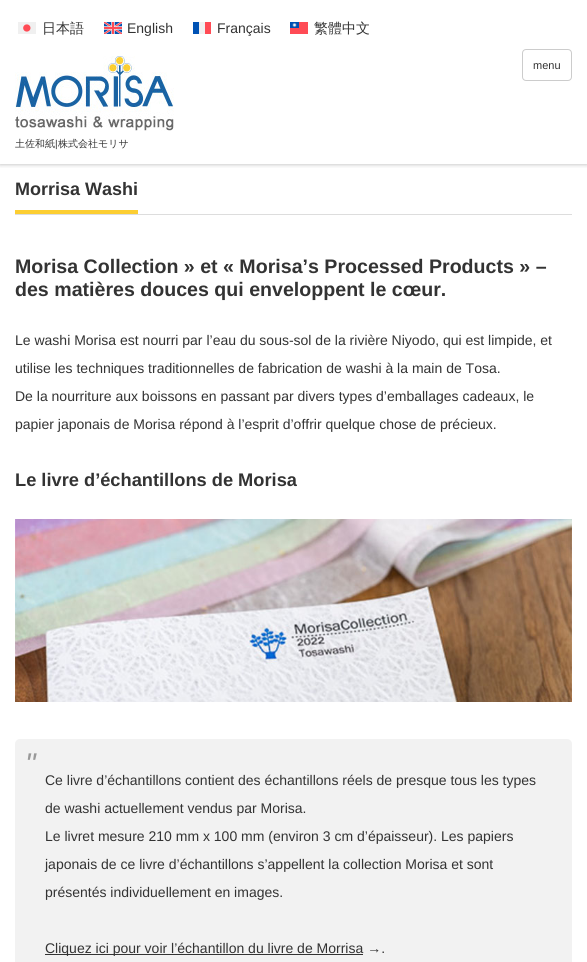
#include <cairo.h>
#include <math.h>
#include <stddef.h>

typedef struct { const char *family; double size; int italic, bold; unsigned color; } style_t;
static cairo_t *ctx;

static void ink(unsigned color) {
    cairo_set_source_rgb(ctx, (color >> 16) / 255.0, (color >> 8 & 255) / 255.0, (color & 255) / 255.0);
}

static void write(double x, double y, const char *s, const style_t *st) {
    cairo_select_font_face(ctx, st->family, st->italic ? CAIRO_FONT_SLANT_ITALIC : CAIRO_FONT_SLANT_NORMAL,
        st->bold ? CAIRO_FONT_WEIGHT_BOLD : CAIRO_FONT_WEIGHT_NORMAL);
    cairo_set_font_size(ctx, st->size);
    ink(st->color);
    cairo_move_to(ctx, x, y);
    cairo_show_text(ctx, s);
}

static void block(double x, double y, double w, double h, unsigned color) {
    ink(color);
    cairo_rectangle(ctx, x, y, w, h);
    cairo_fill(ctx);
}

static void round_path(double x, double y, double w, double h, double r) {
    cairo_new_sub_path(ctx);
    cairo_arc(ctx, x + w - r, y + h - r, r, 0, M_PI / 2);
    cairo_arc(ctx, x + r, y + h - r, r, M_PI / 2, M_PI);
    cairo_arc(ctx, x + r, y + r, r, M_PI, 1.5 * M_PI);
    cairo_arc(ctx, x + w - r, y + r, r, 1.5 * M_PI, 2 * M_PI);
    cairo_close_path(ctx);
}

static void blur_box(double x, double y, double w, double h, double r, double blur, double alpha) {
    cairo_push_group_with_content(ctx, CAIRO_CONTENT_ALPHA);
    cairo_set_operator(ctx, CAIRO_OPERATOR_SOURCE);
    for (int i = 15; i >= -15 && fmin(w, h) + blur * i / 3 > 0; i -= 2) {
        double e = blur * i / 6;
        cairo_set_source_rgba(ctx, 0, 0, 0, alpha * erfc((i - 1) / 8.5) / 2);
        round_path(x - e, y - e, w + 2 * e, h + 2 * e, fmax(0, fmin(r + e + blur * .6, fmin(w, h) / 2 + e)));
        cairo_fill(ctx);
    }
    cairo_pattern_t *soft = cairo_pop_group(ctx);
    cairo_mask(ctx, soft);
    cairo_pattern_destroy(soft);
}

static void paste(const char *path, double x, double y, double w, double h) {
    cairo_surface_t *image = cairo_image_surface_create_from_png(path);
    cairo_save(ctx);
    cairo_set_source_surface(ctx, image, x, y);
    cairo_rectangle(ctx, x, y, w, h);
    cairo_fill(ctx);
    cairo_restore(ctx);
    cairo_surface_destroy(image);
}

static const style_t s1 = {"WenQuanYi Zen Hei Medium", 14, 0, 0, 0x333333};
static const style_t s2 = {"Liberation Sans", 14, 0, 0, 0x333333};
static const style_t s3 = {"Liberation Sans", 11, 0, 0, 0x333333};
static const style_t s4 = {"WenQuanYi Zen Hei Medium", 10, 0, 0, 0x333333};
static const style_t s5 = {"Liberation Sans", 10, 0, 0, 0x333333};
static const style_t s6 = {"Liberation Sans", 18, 0, 1, 0x333333};
static const style_t s7 = {"Liberation Sans", 19.6, 0, 1, 0x333333};
static const style_t s8 = {"Liberation Sans", 18.25, 0, 1, 0x333333};
static const style_t s9 = {"Liberation Sans", 30, 1, 0, 0x999999};

int main(void) {
    cairo_surface_t *surface = cairo_image_surface_create(CAIRO_FORMAT_RGB24, 587, 962);
    ctx = cairo_create(surface);
    cairo_font_options_t *options = cairo_font_options_create();
    cairo_font_options_set_hint_metrics(options, CAIRO_HINT_METRICS_OFF);
    cairo_font_options_set_hint_style(options, CAIRO_HINT_STYLE_NONE);
    cairo_set_font_options(ctx, options);
    cairo_set_miter_limit(ctx, 4);
    ink(0xffffff);
    cairo_paint(ctx);
    cairo_save(ctx);
    cairo_rectangle(ctx, 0, 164, 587, 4);
    cairo_clip(ctx);
    ink(0x000000);
    blur_box(0, 0, 587, 164, 0, 2.5, 0.3);
    cairo_restore(ctx);
    paste("pic1.png", 18, 22, 18, 12);
    write(42, 33, "日本語", &s1);
    paste("pic2.png", 104, 22, 18, 12);
    write(127, 33, "English", &s2);
    block(193, 22, 6, 12, 0x0052b4);
    block(199, 22, 6, 12, 0xf0f0f0);
    block(205, 22, 6, 12, 0xff4b55);
    write(217, 33, "Français", &s2);
    paste("pic3.png", 290, 22, 18, 12);
    write(314, 33, "繁體中文", &s1);
    round_path(522.5, 49.5, 49, 31, 3.5);
    ink(0xcccccc);
    cairo_set_line_width(ctx, 1);
    cairo_stroke(ctx);
    write(533, 69, "menu", &s3);
    paste("pic4.png", 15, 56, 159, 75);
    write(15, 147, "土佐和紙", &s4);
    write(55, 147, "|", &s5);
    write(58, 147, "株式会社モリサ", &s4);
    block(15, 214, 557, 1, 0xdddddd);
    block(15, 210, 123, 4, 0xfcce32);
    write(15, 195, "Morrisa Washi", &s6);
    write(15, 273, "Morisa Collection » et « Morisa’s Processed Products » –", &s7);
    write(15, 296, "des matières douces qui enveloppent le cœur.", &s7);
    write(15, 345, "Le washi Morisa est nourri par l’eau du sous-sol de la rivière Niyodo, qui est limpide, et", &s2);
    write(15, 373, "utilise les techniques traditionnelles de fabrication de washi à la main de Tosa.", &s2);
    write(15, 401, "De la nourriture aux boissons en passant par divers types d’emballages cadeaux, le", &s2);
    write(15, 429, "papier japonais de Morisa répond à l’esprit d’offrir quelque chose de précieux.", &s2);
    write(15, 486, "Le livre d’échantillons de Morisa", &s8);
    paste("pic5.png", 15, 519, 557, 183);
    ink(0xf2f2f2);
    round_path(15, 739, 557, 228, 5);
    cairo_fill(ctx);
    write(25, 774, "\"", &s9);
    write(45, 785, "Ce livre d’échantillons contient des échantillons réels de presque tous les types", &s2);
    write(45, 813, "de washi actuellement vendus par Morisa.", &s2);
    write(45, 841, "Le livret mesure 210 mm x 100 mm (environ 3 cm d’épaisseur). Les papiers", &s2);
    write(45, 869, "japonais de ce livre d’échantillons s’appellent la collection Morisa et sont", &s2);
    write(45, 897, "présentés individuellement en images.", &s2);
    block(45, 954, 318, 1, 0x333333);
    write(45, 953, "Cliquez ici pour voir l’échantillon du livre de Morrisa →.", &s2);
    cairo_surface_write_to_png(surface, "screenshot.png");
    cairo_font_options_destroy(options);
    cairo_destroy(ctx);
    cairo_surface_destroy(surface);
    return 0;
}
